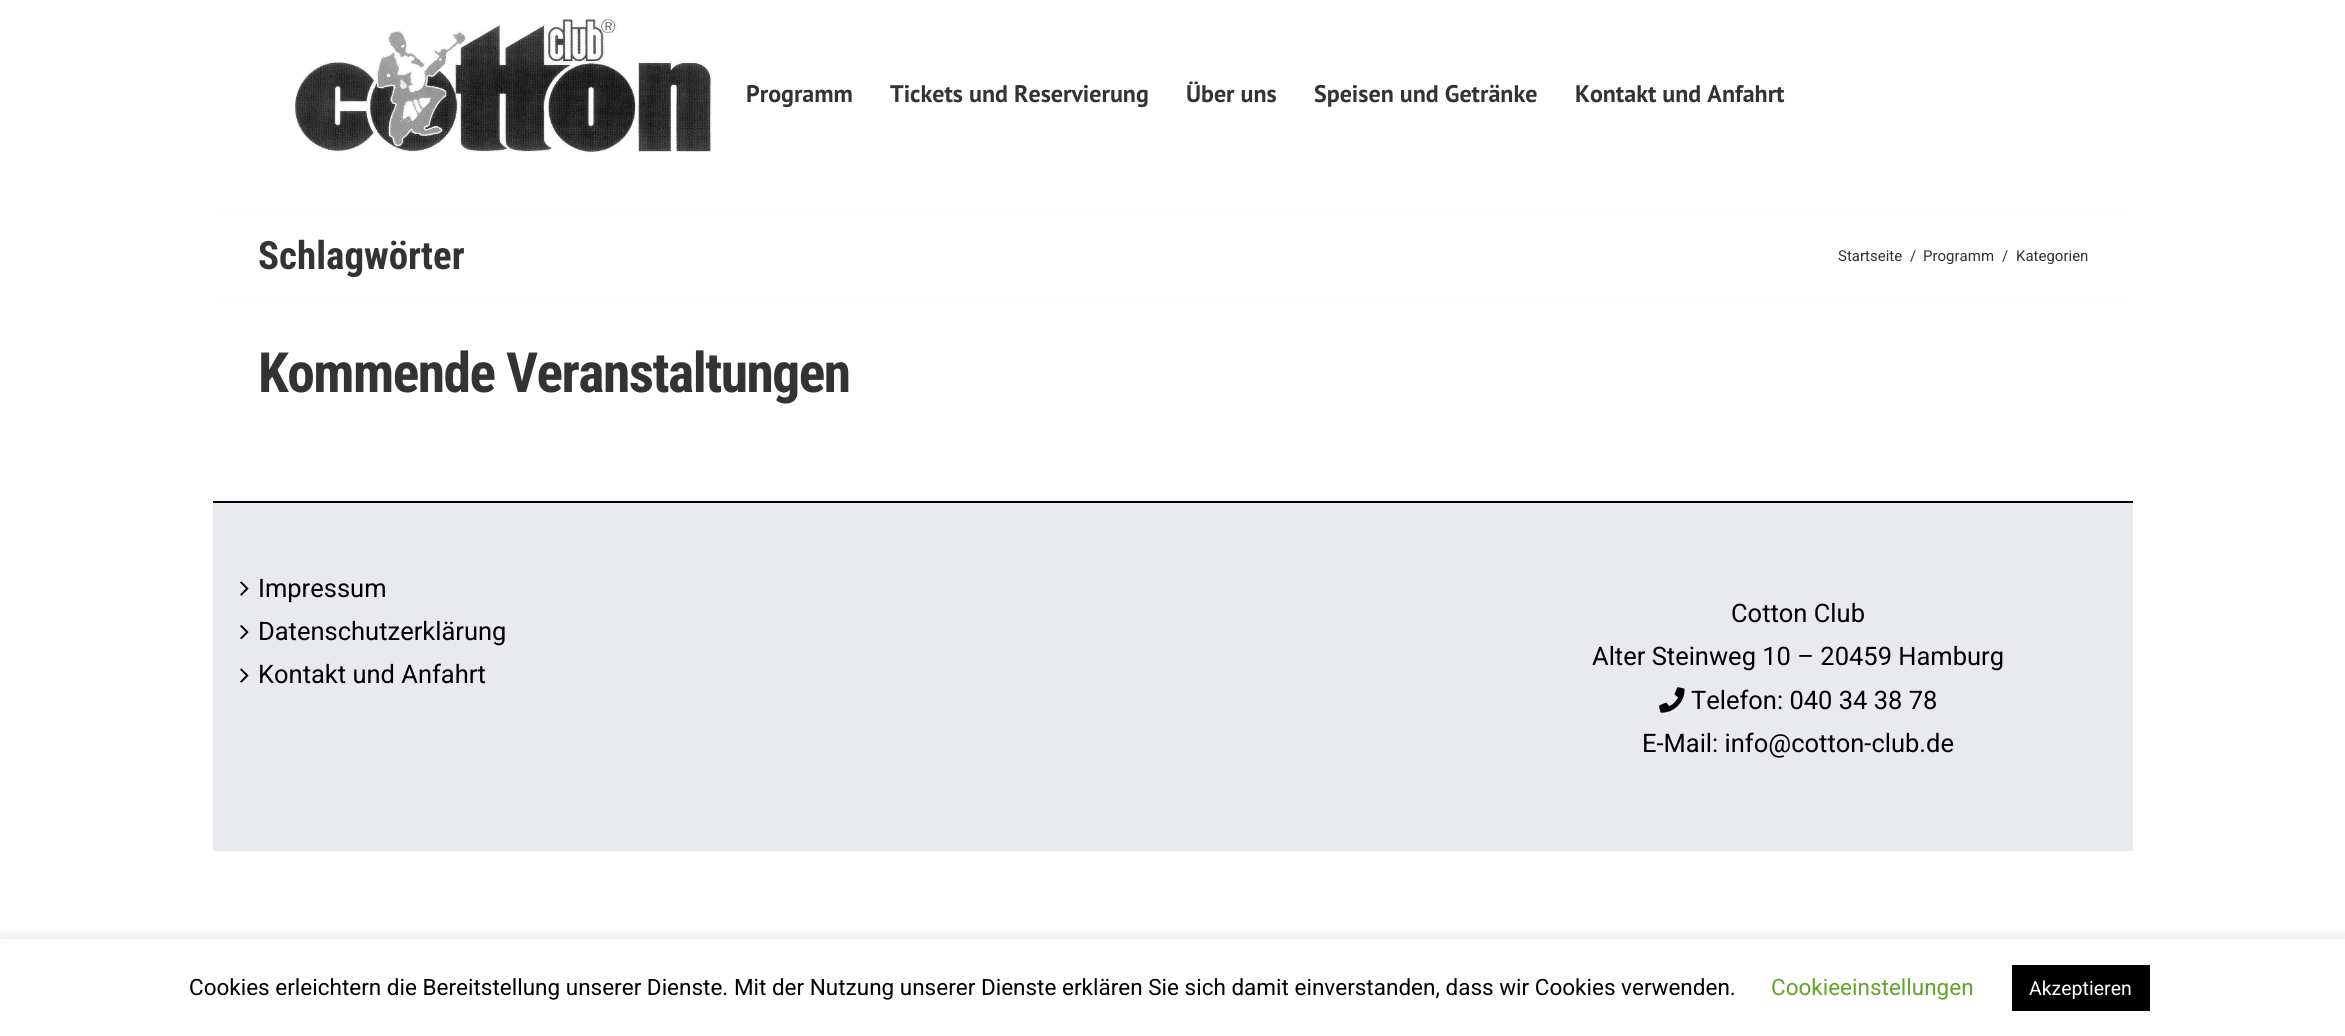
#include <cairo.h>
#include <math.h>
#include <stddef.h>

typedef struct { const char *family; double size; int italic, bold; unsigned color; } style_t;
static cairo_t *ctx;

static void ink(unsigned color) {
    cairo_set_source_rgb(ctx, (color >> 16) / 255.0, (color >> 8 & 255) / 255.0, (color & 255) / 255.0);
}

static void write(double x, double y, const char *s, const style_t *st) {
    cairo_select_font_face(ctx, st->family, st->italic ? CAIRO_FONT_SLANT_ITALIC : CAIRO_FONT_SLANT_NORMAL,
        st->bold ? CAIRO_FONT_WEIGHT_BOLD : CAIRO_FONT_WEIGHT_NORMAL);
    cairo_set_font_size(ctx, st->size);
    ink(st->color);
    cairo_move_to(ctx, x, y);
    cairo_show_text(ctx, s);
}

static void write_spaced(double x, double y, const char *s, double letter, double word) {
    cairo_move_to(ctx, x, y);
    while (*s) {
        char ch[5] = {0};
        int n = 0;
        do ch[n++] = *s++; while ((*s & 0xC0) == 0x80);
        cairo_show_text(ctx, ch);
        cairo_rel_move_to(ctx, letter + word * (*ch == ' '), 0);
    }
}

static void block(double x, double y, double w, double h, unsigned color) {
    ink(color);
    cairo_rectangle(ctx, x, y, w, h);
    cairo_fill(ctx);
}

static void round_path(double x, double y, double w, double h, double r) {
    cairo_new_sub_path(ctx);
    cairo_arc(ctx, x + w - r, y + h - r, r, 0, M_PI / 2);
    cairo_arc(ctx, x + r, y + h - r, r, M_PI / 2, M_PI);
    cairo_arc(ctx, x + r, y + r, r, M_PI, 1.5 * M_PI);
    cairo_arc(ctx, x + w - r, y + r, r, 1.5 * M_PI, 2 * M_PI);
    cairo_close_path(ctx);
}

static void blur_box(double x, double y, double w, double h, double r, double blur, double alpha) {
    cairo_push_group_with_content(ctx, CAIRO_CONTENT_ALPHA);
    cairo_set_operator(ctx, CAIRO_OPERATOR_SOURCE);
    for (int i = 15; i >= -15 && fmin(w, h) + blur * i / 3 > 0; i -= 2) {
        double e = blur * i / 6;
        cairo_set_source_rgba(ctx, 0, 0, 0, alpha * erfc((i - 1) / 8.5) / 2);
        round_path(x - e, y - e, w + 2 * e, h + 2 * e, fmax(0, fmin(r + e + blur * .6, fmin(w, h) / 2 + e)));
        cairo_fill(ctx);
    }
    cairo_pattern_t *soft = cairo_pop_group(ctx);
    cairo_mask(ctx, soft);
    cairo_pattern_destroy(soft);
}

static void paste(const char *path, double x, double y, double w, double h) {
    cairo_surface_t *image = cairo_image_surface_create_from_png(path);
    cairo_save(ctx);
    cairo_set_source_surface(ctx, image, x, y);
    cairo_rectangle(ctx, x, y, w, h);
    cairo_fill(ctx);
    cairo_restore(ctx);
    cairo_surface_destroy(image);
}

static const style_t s1 = {"PT Sans", 24, 0, 1, 0x333333};
static const style_t s2 = {"Roboto Condensed", 39, 0, 1, 0x333333};
static const style_t s3 = {"Roboto", 15, 0, 0, 0x333333};
static const style_t s4 = {"Roboto", 25.5, 0, 0, 0x000000};
static const style_t s5 = {"Roboto", 22.5, 0, 0, 0x000000};
static const style_t s6 = {"Roboto", 22.5, 0, 0, 0x62a329};
static const style_t s7 = {"Roboto", 19.5, 0, 0, 0xffffff};

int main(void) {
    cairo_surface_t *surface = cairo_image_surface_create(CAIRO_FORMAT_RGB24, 2345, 1036);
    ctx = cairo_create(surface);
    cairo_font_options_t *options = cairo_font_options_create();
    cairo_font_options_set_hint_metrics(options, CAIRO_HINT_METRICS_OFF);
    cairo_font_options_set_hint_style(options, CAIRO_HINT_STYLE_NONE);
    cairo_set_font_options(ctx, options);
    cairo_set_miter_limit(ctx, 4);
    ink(0xffffff);
    cairo_paint(ctx);
    paste("pic1.png", 295, 19, 417, 134);
    write(746, 102, "Programm", &s1);
    write(890, 102, "Tickets und Reservierung", &s1);
    write(1186, 102, "Über uns", &s1);
    write(1314, 102, "Speisen und Getränke", &s1);
    write(1575, 102, "Kontakt und Anfahrt", &s1);
    block(213, 212, 1920, 2, 0xfffcfc);
    block(213, 300, 1920, 2, 0xfffcfc);
    write(258, 269, "Schlagwörter", &s2);
    write(1838, 261, "Startseite", &s3);
    write(1910, 261, "/", &s3);
    write(1923, 261, "Programm", &s3);
    write(2002, 261, "/", &s3);
    write(2016, 261, "Kategorien", &s3);
    cairo_select_font_face(ctx, "Roboto Condensed", CAIRO_FONT_SLANT_NORMAL, CAIRO_FONT_WEIGHT_BOLD);
    cairo_set_font_size(ctx, 55.5);
    write_spaced(258, 392, "Kommende Veranstaltungen", -1.5, 0);
    block(213, 503, 1920, 348, 0xe9eaee);
    block(213, 501, 1920, 2, 0x000000);
    paste("pic2.png", 240, 581, 9, 15);
    write(258, 597, "Impressum", &s4);
    paste("pic3.png", 240, 625, 9, 15);
    write(258, 640, "Datenschutzerklärung", &s4);
    paste("pic2.png", 240, 668, 9, 15);
    write(258, 683, "Kontakt und Anfahrt", &s4);
    write(1731, 622, "Cotton Club", &s4);
    write(1592, 665, "Alter Steinweg 10 – 20459 Hamburg", &s4);
    paste("pic4.png", 1659, 687, 26, 26);
    write(1691, 709, "Telefon: 040 34 38 78", &s4);
    write(1642, 752, "E-Mail: info@cotton-club.de", &s4);
    cairo_save(ctx);
    cairo_rectangle(ctx, 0, 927, 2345, 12);
    cairo_clip(ctx);
    ink(0xacabab);
    blur_box(0, 938, 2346, 97, 0, 7.5, 0.3);
    cairo_restore(ctx);
    write(189, 995, "Cookies erleichtern die Bereitstellung unserer Dienste. Mit der Nutzung unserer Dienste erklären Sie sich damit einverstanden, dass wir Cookies verwenden.", &s5);
    write(1771, 995, "Cookieeinstellungen", &s6);
    block(2012, 965, 138, 46, 0x000000);
    write(2029, 995, "Akzeptieren", &s7);
    cairo_surface_write_to_png(surface, "screenshot.png");
    cairo_font_options_destroy(options);
    cairo_destroy(ctx);
    cairo_surface_destroy(surface);
    return 0;
}
